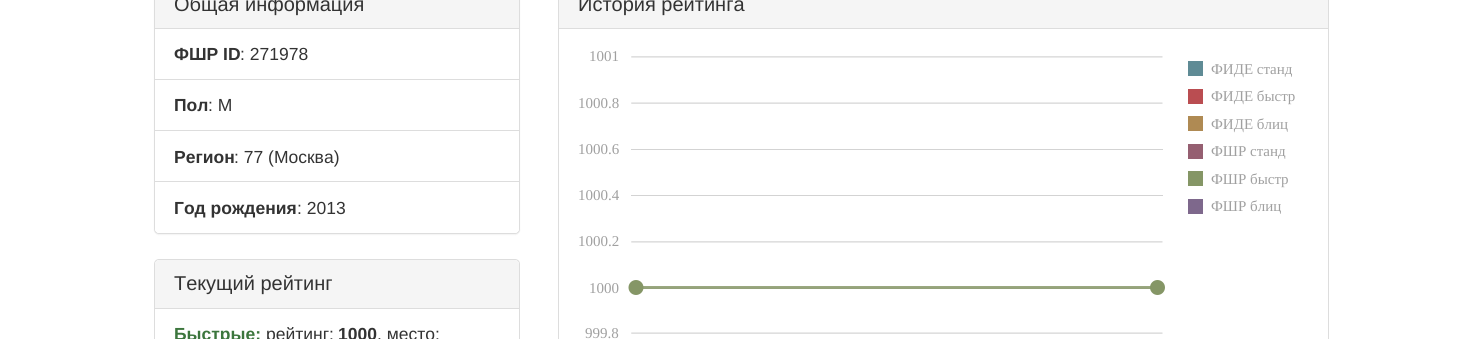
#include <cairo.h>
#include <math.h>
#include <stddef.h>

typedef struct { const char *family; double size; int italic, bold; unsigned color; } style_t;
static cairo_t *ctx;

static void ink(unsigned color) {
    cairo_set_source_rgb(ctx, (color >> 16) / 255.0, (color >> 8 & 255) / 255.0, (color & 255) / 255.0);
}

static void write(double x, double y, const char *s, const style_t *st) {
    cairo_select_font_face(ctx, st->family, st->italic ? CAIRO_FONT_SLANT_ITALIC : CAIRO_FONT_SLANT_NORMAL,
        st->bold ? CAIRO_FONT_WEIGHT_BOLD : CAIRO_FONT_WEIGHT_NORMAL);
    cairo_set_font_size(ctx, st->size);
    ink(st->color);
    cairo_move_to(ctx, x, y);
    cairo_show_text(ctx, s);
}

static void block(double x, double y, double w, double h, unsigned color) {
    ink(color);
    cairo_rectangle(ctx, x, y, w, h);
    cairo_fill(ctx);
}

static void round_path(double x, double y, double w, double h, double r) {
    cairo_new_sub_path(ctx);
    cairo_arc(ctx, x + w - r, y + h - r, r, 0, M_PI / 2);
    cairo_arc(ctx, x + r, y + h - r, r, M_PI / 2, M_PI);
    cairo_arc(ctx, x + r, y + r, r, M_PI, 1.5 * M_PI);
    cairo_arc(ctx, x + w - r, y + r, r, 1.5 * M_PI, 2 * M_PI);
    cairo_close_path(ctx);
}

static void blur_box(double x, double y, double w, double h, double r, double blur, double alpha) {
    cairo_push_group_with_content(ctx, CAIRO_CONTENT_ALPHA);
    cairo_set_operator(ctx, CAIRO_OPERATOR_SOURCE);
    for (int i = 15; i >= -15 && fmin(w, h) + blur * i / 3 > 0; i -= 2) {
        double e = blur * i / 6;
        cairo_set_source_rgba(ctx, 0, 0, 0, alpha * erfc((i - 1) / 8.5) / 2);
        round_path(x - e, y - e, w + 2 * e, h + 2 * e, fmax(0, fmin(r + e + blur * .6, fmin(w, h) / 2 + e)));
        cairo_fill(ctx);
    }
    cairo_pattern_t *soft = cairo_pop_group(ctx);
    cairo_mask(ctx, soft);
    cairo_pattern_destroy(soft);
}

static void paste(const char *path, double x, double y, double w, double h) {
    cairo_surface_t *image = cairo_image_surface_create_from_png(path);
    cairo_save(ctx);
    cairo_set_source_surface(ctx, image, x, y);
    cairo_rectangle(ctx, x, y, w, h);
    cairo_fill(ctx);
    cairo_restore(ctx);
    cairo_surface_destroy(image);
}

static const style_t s1 = {"Liberation Sans", 20, 0, 0, 0x333333};
static const style_t s2 = {"Liberation Sans", 17.5, 0, 1, 0x333333};
static const style_t s3 = {"Liberation Sans", 17.5, 0, 0, 0x333333};
static const style_t s4 = {"Liberation Sans", 17.5, 0, 1, 0x3c763d};
static const style_t s5 = {"Liberation Serif", 15, 0, 0, 0xa0a0a0};

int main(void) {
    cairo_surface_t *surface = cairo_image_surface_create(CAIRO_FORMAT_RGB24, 1482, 339);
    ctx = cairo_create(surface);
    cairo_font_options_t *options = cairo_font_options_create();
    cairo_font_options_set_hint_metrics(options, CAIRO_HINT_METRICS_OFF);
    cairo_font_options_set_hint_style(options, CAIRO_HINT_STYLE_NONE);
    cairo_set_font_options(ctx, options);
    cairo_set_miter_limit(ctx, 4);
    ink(0xffffff);
    cairo_paint(ctx);
    ink(0x000000);
    blur_box(154, -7, 366, 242, 5, 0.5, 0.05);
    ink(0xffffff);
    round_path(154.5, -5.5, 365, 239, 4.5);
    cairo_fill_preserve(ctx);
    ink(0xdddddd);
    cairo_set_line_width(ctx, 1);
    cairo_stroke(ctx);
    block(155, 0, 364, 28, 0xf5f5f5);
    block(155, 28, 364, 1, 0xdddddd);
    write(174, 11, "Общая информация", &s1);
    block(155, 79, 364, 1, 0xdddddd);
    write(174, 60, "ФШР ID", &s2);
    write(240, 60, ": 271978", &s3);
    block(155, 130, 364, 1, 0xdddddd);
    write(174, 111, "Пол", &s2);
    write(208, 111, ": М", &s3);
    write(174, 163, "Регион", &s2);
    write(234, 163, ": 77 (Москва)", &s3);
    ink(0xffffff);
    cairo_new_path(ctx);
    cairo_move_to(ctx, 155, 181);
    cairo_line_to(ctx, 519, 181);
    cairo_line_to(ctx, 519, 229);
    cairo_curve_to(ctx, 519, 231, 517, 233, 515, 233);
    cairo_line_to(ctx, 159, 233);
    cairo_curve_to(ctx, 157, 233, 155, 231, 155, 229);
    cairo_close_path(ctx);
    cairo_fill(ctx);
    block(155, 181, 364, 1, 0xdddddd);
    write(174, 214, "Год рождения", &s2);
    write(297, 214, ": 2013", &s3);
    round_path(154.5, 259.5, 365, 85, 4.5);
    ink(0xdddddd);
    cairo_stroke(ctx);
    ink(0xf5f5f5);
    cairo_new_path(ctx);
    cairo_move_to(ctx, 159, 260);
    cairo_line_to(ctx, 515, 260);
    cairo_curve_to(ctx, 517, 260, 519, 262, 519, 264);
    cairo_line_to(ctx, 519, 309);
    cairo_line_to(ctx, 155, 309);
    cairo_line_to(ctx, 155, 264);
    cairo_curve_to(ctx, 155, 262, 157, 260, 159, 260);
    cairo_close_path(ctx);
    cairo_fill(ctx);
    block(155, 308, 364, 1, 0xdddddd);
    write(174, 290, "Текущий рейтинг", &s1);
    write(174, 340, "Быстрые:", &s4);
    write(266, 340, "рейтинг:", &s3);
    write(338, 340, "1000", &s2);
    write(377, 340, ", место:", &s3);
    cairo_rectangle(ctx, 558.5, -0.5, 770, 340);
    ink(0xdddddd);
    cairo_stroke(ctx);
    block(559, 0, 769, 28, 0xf5f5f5);
    block(559, 28, 769, 1, 0xdddddd);
    write(578, 11, "История рейтинга", &s1);
    write(589, 61, "1001", &s5);
    paste("pic1.png", 628, 56, 575, 278);
    write(1211, 74, "ФИДЕ станд", &s5);
    write(578, 108, "1000.8", &s5);
    write(1211, 101, "ФИДЕ быстр", &s5);
    write(1211, 129, "ФИДЕ блиц", &s5);
    write(578, 154, "1000.6", &s5);
    write(1211, 156, "ФШР станд", &s5);
    write(1211, 184, "ФШР быстр", &s5);
    write(578, 200, "1000.4", &s5);
    write(1211, 211, "ФШР блиц", &s5);
    write(578, 246, "1000.2", &s5);
    write(589, 293, "1000", &s5);
    write(585, 338, "999.8", &s5);
    cairo_surface_write_to_png(surface, "screenshot.png");
    cairo_font_options_destroy(options);
    cairo_destroy(ctx);
    cairo_surface_destroy(surface);
    return 0;
}
